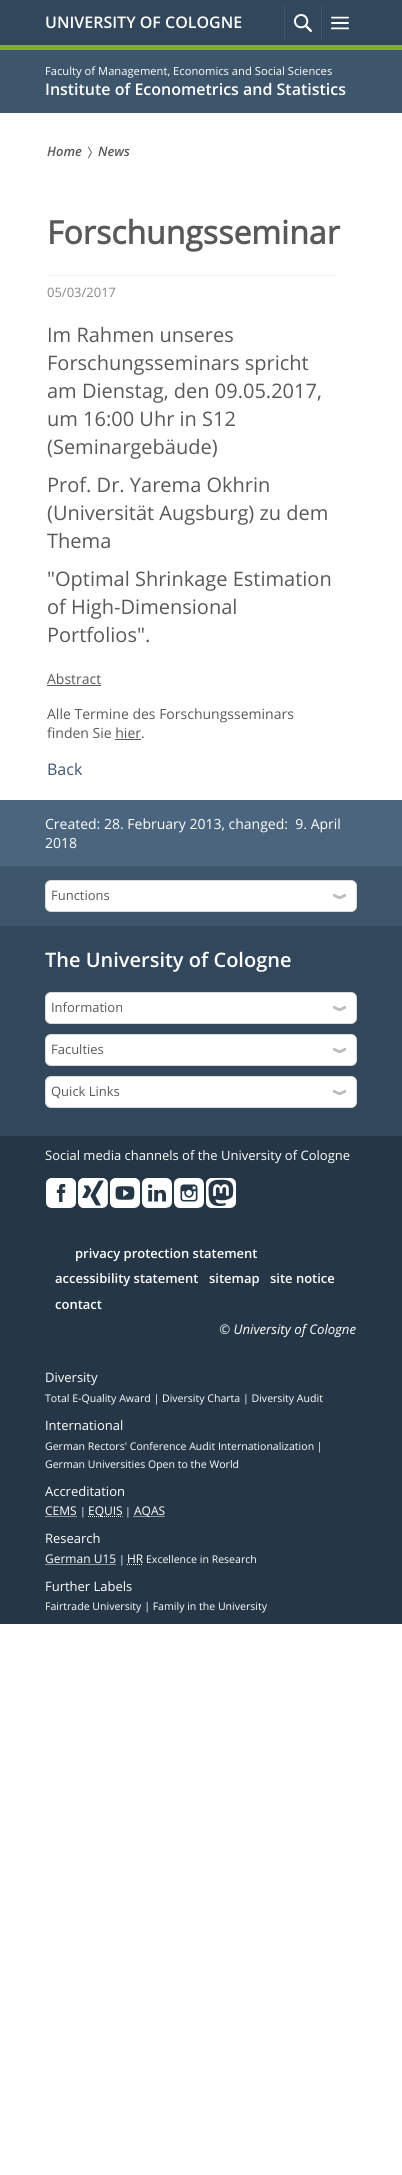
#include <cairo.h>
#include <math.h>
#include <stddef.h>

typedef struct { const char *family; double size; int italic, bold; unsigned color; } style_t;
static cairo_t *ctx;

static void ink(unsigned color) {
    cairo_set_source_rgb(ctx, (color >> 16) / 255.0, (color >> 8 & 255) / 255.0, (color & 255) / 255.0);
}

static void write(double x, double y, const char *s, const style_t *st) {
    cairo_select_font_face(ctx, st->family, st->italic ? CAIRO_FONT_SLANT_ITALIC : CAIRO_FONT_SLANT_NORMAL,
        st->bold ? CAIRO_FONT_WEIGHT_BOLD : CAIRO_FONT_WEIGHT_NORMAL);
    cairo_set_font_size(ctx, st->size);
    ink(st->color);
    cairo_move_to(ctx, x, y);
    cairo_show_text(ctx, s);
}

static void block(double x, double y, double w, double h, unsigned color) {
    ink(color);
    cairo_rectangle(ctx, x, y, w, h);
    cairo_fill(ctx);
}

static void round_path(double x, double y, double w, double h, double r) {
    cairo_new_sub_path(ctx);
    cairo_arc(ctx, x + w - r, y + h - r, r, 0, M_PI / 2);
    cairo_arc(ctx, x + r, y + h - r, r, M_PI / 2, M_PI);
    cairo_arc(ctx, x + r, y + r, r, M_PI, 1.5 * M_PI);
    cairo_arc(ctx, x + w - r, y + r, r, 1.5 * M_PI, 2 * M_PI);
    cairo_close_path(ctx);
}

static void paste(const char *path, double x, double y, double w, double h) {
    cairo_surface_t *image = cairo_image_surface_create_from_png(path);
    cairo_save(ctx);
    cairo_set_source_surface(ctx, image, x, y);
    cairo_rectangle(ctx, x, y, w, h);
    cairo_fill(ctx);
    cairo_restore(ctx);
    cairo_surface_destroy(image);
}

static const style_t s1 = {"Open Sans SemiBold", 16, 0, 0, 0xffffff};
static const style_t s2 = {"Open Sans", 11.2, 0, 0, 0xffffff};
static const style_t s3 = {"Open Sans SemiBold", 13, 1, 0, 0x58595b};
static const style_t s4 = {"Open Sans", 32, 0, 1, 0x58595b};
static const style_t s5 = {"Open Sans", 13, 0, 0, 0x888888};
static const style_t s6 = {"Open Sans", 20, 0, 0, 0x58595b};
static const style_t s7 = {"Open Sans", 14, 0, 0, 0x58595b};
static const style_t s8 = {"Open Sans", 16, 0, 0, 0x3e566c};
static const style_t s9 = {"Open Sans", 14, 0, 0, 0xffffff};
static const style_t s10 = {"Open Sans", 13, 0, 0, 0x58595b};
static const style_t s11 = {"Open Sans SemiBold", 20, 0, 0, 0xffffff};
static const style_t s12 = {"Open Sans", 13, 0, 0, 0xffffff};
static const style_t s13 = {"Open Sans SemiBold", 13, 0, 0, 0xffffff};
static const style_t s14 = {"Open Sans", 13.25, 1, 0, 0xffffff};
static const style_t s15 = {"Open Sans", 10.55, 0, 0, 0xffffff};
static const style_t s16 = {"Open Sans", 12, 0, 0, 0xffffff};

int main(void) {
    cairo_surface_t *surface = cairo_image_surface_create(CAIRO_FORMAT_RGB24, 402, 2175);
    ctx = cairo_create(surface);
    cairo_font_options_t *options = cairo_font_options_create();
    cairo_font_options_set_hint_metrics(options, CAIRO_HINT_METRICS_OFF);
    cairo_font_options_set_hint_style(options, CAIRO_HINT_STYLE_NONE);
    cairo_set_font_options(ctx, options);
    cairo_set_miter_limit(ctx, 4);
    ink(0xffffff);
    cairo_paint(ctx);
    block(0, 50, 402, 63, 0x3e566c);
    block(0, 0, 402, 45, 0x32475b);
    block(0, 45, 402, 5, 0x83b022);
    write(45, 28, "UNIVERSITY OF COLOGNE", &s1);
    block(284, 5, 1, 35, 0x3e566c);
    paste("pic1.png", 294, 14, 18, 18);
    block(321, 5, 1, 35, 0x3e566c);
    paste("pic2.png", 331, 16, 18, 14);
    write(45, 75, "Faculty of Management, Economics and Social Sciences", &s2);
    write(45, 95, "Institute of Econometrics and Statistics", &s1);
    write(47, 156, "Home", &s3);
    paste("pic3.png", 88, 146, 4, 13);
    write(98, 156, "News", &s3);
    write(47, 244, "Forschungsseminar", &s4);
    block(47, 275, 288, 1, 0xeeeeee);
    write(47, 297, "05/03/2017", &s5);
    write(47, 342, "Im Rahmen unseres", &s6);
    write(47, 370, "Forschungsseminars spricht", &s6);
    write(47, 398, "am Dienstag, den 09.05.2017,", &s6);
    write(47, 426, "um 16:00 Uhr in S12", &s6);
    write(47, 454, "(Seminargebäude)", &s6);
    write(47, 492, "Prof. Dr. Yarema Okhrin", &s6);
    write(47, 520, "(Universität Augsburg) zu dem", &s6);
    write(47, 548, "Thema", &s6);
    write(47, 586, "\"Optimal Shrinkage Estimation", &s6);
    write(47, 614, "of High-Dimensional", &s6);
    write(47, 642, "Portfolios\".", &s6);
    write(47, 684, "Abstract", &s7);
    block(47, 685, 54, 1, 0x58595b);
    write(47, 719, "Alle Termine des Forschungsseminars", &s7);
    write(47, 738, "finden Sie hier.", &s7);
    block(115, 739, 26, 1, 0x58595b);
    write(47, 775, "Back", &s8);
    block(0, 800, 402, 66, 0x4a657d);
    write(45, 829, "Created: 28. February 2013, changed:  9. April", &s9);
    write(45, 848, "2018", &s9);
    block(0, 866, 402, 60, 0x3e566c);
    ink(0xffffff);
    round_path(45.5, 880.5, 311, 31, 5.5);
    cairo_fill_preserve(ctx);
    ink(0xdbdbdb);
    cairo_set_line_width(ctx, 1);
    cairo_stroke(ctx);
    write(51, 900, "Functions", &s10);
    ink(0xffffff);
    cairo_new_path(ctx);
    cairo_move_to(ctx, 327, 881);
    cairo_line_to(ctx, 351, 881);
    cairo_curve_to(ctx, 354, 881, 356, 883, 356, 886);
    cairo_line_to(ctx, 356, 906);
    cairo_curve_to(ctx, 356, 909, 354, 911, 351, 911);
    cairo_line_to(ctx, 327, 911);
    cairo_curve_to(ctx, 325.5, 911, 324, 909.5, 324, 908);
    cairo_line_to(ctx, 324, 884);
    cairo_curve_to(ctx, 324, 882.5, 325.5, 881, 327, 881);
    cairo_close_path(ctx);
    cairo_fill(ctx);
    paste("pic4.png", 333, 893, 13, 7);
    block(0, 926, 402, 210, 0x32475b);
    write(45, 967, "The University of Cologne", &s11);
    round_path(45.5, 992.5, 311, 31, 5.5);
    cairo_fill_preserve(ctx);
    ink(0xdbdbdb);
    cairo_stroke(ctx);
    write(51, 1012, "Information", &s10);
    ink(0xffffff);
    cairo_new_path(ctx);
    cairo_move_to(ctx, 327, 993);
    cairo_line_to(ctx, 351, 993);
    cairo_curve_to(ctx, 354, 993, 356, 995, 356, 998);
    cairo_line_to(ctx, 356, 1018);
    cairo_curve_to(ctx, 356, 1021, 354, 1023, 351, 1023);
    cairo_line_to(ctx, 327, 1023);
    cairo_curve_to(ctx, 325.5, 1023, 324, 1021.5, 324, 1020);
    cairo_line_to(ctx, 324, 996);
    cairo_curve_to(ctx, 324, 994.5, 325.5, 993, 327, 993);
    cairo_close_path(ctx);
    cairo_fill(ctx);
    paste("pic4.png", 333, 1005, 13, 7);
    round_path(45.5, 1034.5, 311, 31, 5.5);
    cairo_fill_preserve(ctx);
    ink(0xdbdbdb);
    cairo_stroke(ctx);
    write(51, 1054, "Faculties", &s10);
    ink(0xffffff);
    cairo_new_path(ctx);
    cairo_move_to(ctx, 327, 1035);
    cairo_line_to(ctx, 351, 1035);
    cairo_curve_to(ctx, 354, 1035, 356, 1037, 356, 1040);
    cairo_line_to(ctx, 356, 1060);
    cairo_curve_to(ctx, 356, 1063, 354, 1065, 351, 1065);
    cairo_line_to(ctx, 327, 1065);
    cairo_curve_to(ctx, 325.5, 1065, 324, 1063.5, 324, 1062);
    cairo_line_to(ctx, 324, 1038);
    cairo_curve_to(ctx, 324, 1036.5, 325.5, 1035, 327, 1035);
    cairo_close_path(ctx);
    cairo_fill(ctx);
    paste("pic4.png", 333, 1047, 13, 7);
    round_path(45.5, 1076.5, 311, 31, 5.5);
    cairo_fill_preserve(ctx);
    ink(0xdbdbdb);
    cairo_stroke(ctx);
    write(51, 1096, "Quick Links", &s10);
    ink(0xffffff);
    cairo_new_path(ctx);
    cairo_move_to(ctx, 327, 1077);
    cairo_line_to(ctx, 351, 1077);
    cairo_curve_to(ctx, 354, 1077, 356, 1079, 356, 1082);
    cairo_line_to(ctx, 356, 1102);
    cairo_curve_to(ctx, 356, 1105, 354, 1107, 351, 1107);
    cairo_line_to(ctx, 327, 1107);
    cairo_curve_to(ctx, 325.5, 1107, 324, 1105.5, 324, 1104);
    cairo_line_to(ctx, 324, 1080);
    cairo_curve_to(ctx, 324, 1078.5, 325.5, 1077, 327, 1077);
    cairo_close_path(ctx);
    cairo_fill(ctx);
    paste("pic4.png", 333, 1089, 13, 7);
    block(0, 1136, 402, 488, 0x253746);
    write(45, 1160, "Social media channels of the University of Cologne", &s12);
    paste("pic5.png", 46, 1178, 30, 30);
    paste("pic6.png", 78, 1178, 30, 30);
    paste("pic7.png", 110, 1178, 30, 30);
    paste("pic8.png", 142, 1178, 30, 30);
    paste("pic9.png", 174, 1178, 30, 30);
    paste("pic10.png", 206, 1178, 30, 30);
    write(75, 1258, "privacy protection statement", &s13);
    write(55, 1283, "accessibility statement", &s13);
    write(209, 1283, "sitemap", &s13);
    write(270, 1283, "site notice", &s13);
    write(55, 1309, "contact", &s13);
    write(219, 1334, "© University of Cologne", &s14);
    write(45, 1382, "Diversity", &s12);
    write(45, 1402, "Total E-Quality Award | Diversity Charta | Diversity Audit", &s15);
    write(45, 1430, "International", &s12);
    write(45, 1450, "German Rectors' Conference Audit Internationalization |", &s15);
    write(45, 1468, "German Universities Open to the World", &s15);
    write(45, 1496, "Accreditation", &s12);
    write(45, 1515, "CEMS", &s16);
    cairo_new_path(ctx);
    cairo_move_to(ctx, 45.5, 1516.5);
    cairo_line_to(ctx, 77, 1516.5);
    cairo_set_dash(ctx, (double[]){1, 1}, 2, 0);
    cairo_stroke(ctx);
    write(80, 1515, "|", &s15);
    cairo_new_path(ctx);
    cairo_move_to(ctx, 88, 1516.5);
    cairo_line_to(ctx, 122.5, 1516.5);
    cairo_stroke(ctx);
    write(88, 1515, "EQUIS", &s16);
    write(125, 1515, "|", &s15);
    cairo_new_path(ctx);
    cairo_move_to(ctx, 133.5, 1516.5);
    cairo_line_to(ctx, 164.5, 1516.5);
    cairo_stroke(ctx);
    write(134, 1515, "AQAS", &s16);
    write(45, 1543, "Research", &s12);
    write(45, 1563, "German U15", &s16);
    cairo_new_path(ctx);
    cairo_move_to(ctx, 45.5, 1564.5);
    cairo_line_to(ctx, 116, 1564.5);
    cairo_stroke(ctx);
    write(119, 1563, "|", &s15);
    write(127, 1563, "HR", &s16);
    cairo_new_path(ctx);
    cairo_move_to(ctx, 127, 1564.5);
    cairo_line_to(ctx, 143, 1564.5);
    cairo_stroke(ctx);
    write(146, 1563, "Excellence in Research", &s15);
    write(45, 1591, "Further Labels", &s12);
    write(45, 1610, "Fairtrade University | Family in the University", &s15);
    cairo_surface_write_to_png(surface, "screenshot.png");
    cairo_font_options_destroy(options);
    cairo_destroy(ctx);
    cairo_surface_destroy(surface);
    return 0;
}
